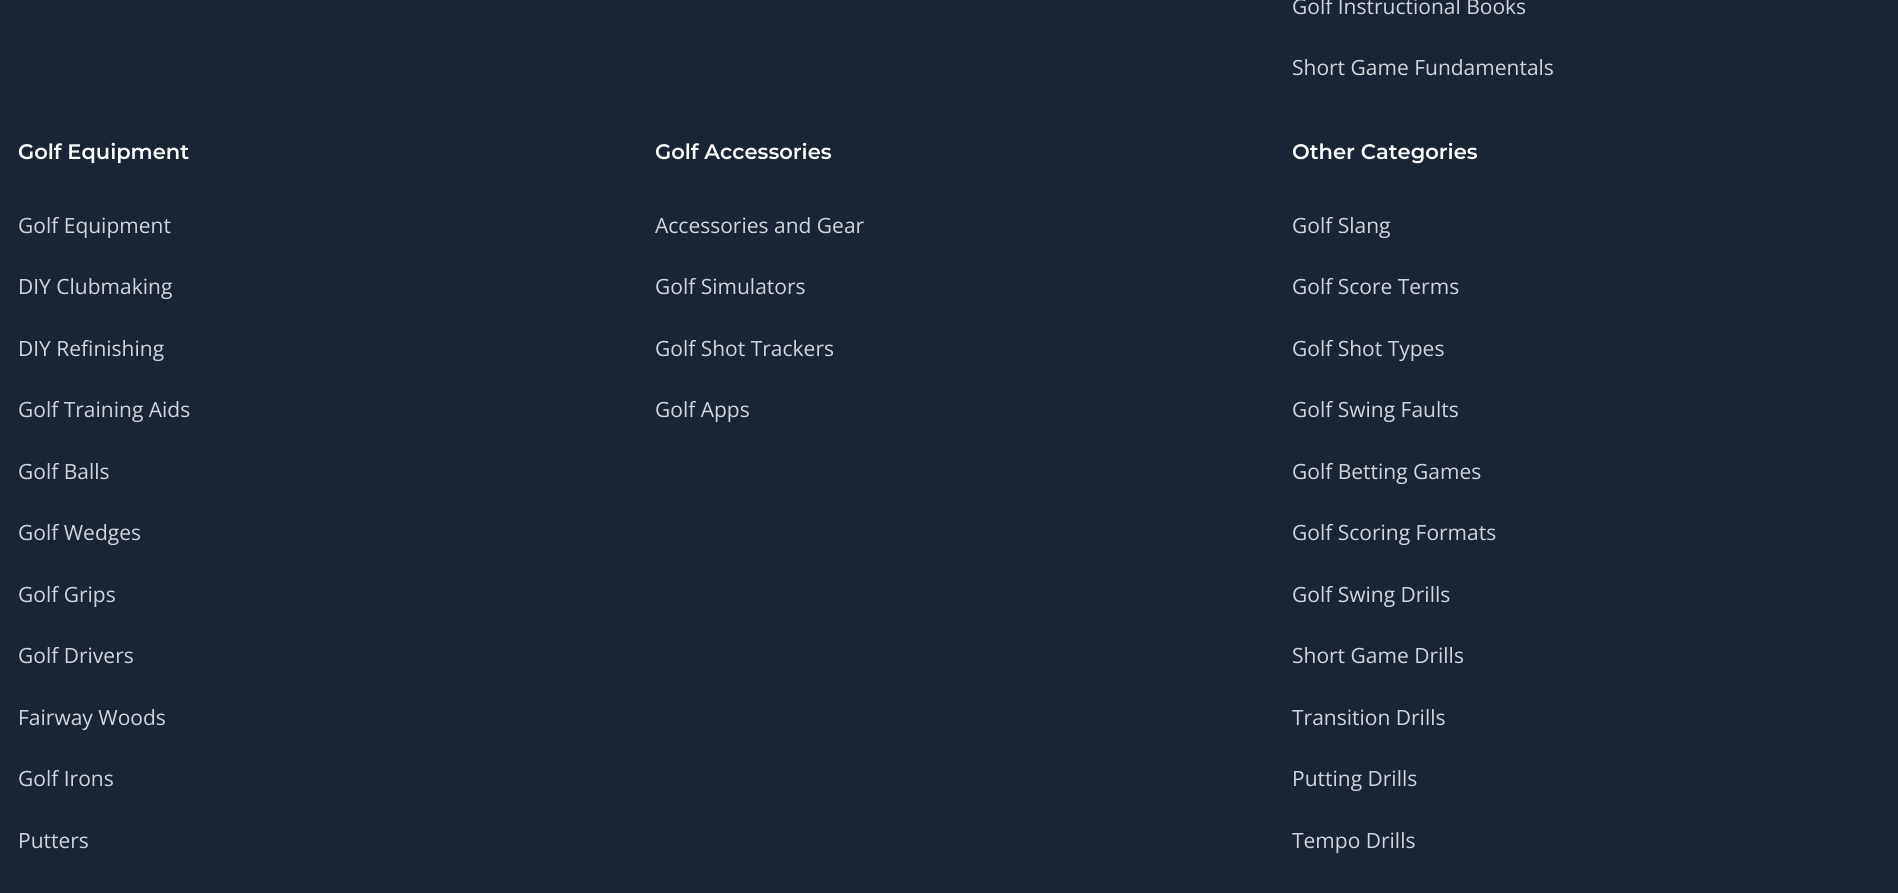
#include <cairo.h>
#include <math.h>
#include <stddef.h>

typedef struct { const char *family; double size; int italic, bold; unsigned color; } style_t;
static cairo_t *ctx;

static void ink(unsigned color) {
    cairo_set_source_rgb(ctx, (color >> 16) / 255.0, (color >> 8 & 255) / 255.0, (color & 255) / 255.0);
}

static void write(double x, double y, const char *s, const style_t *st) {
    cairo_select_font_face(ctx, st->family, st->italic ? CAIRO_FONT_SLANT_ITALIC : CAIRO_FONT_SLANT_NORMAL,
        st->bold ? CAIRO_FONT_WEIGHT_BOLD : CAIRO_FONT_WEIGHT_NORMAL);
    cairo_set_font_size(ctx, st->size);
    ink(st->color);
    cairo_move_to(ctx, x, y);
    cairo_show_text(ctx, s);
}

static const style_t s1 = {"Open Sans", 21, 0, 0, 0xd1d5db};
static const style_t s2 = {"Montserrat SemiBold", 21, 0, 0, 0xffffff};

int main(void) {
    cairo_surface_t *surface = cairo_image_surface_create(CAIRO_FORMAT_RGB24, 1898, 893);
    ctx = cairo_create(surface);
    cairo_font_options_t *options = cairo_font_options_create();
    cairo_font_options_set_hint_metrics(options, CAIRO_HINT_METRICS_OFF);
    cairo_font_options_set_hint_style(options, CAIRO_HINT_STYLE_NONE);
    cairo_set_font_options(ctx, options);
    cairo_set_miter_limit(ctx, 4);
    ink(0x192534);
    cairo_paint(ctx);
    write(1292, 14, "Golf Instructional Books", &s1);
    write(1292, 75, "Short Game Fundamentals", &s1);
    write(18, 159, "Golf Equipment", &s2);
    write(18, 233, "Golf Equipment", &s1);
    write(18, 294, "DIY Clubmaking", &s1);
    write(18, 356, "DIY Refinishing", &s1);
    write(18, 417, "Golf Training Aids", &s1);
    write(18, 479, "Golf Balls", &s1);
    write(18, 540, "Golf Wedges", &s1);
    write(18, 602, "Golf Grips", &s1);
    write(18, 663, "Golf Drivers", &s1);
    write(18, 725, "Fairway Woods", &s1);
    write(18, 786, "Golf Irons", &s1);
    write(18, 848, "Putters", &s1);
    write(655, 159, "Golf Accessories", &s2);
    write(655, 233, "Accessories and Gear", &s1);
    write(655, 294, "Golf Simulators", &s1);
    write(655, 356, "Golf Shot Trackers", &s1);
    write(655, 417, "Golf Apps", &s1);
    write(1292, 159, "Other Categories", &s2);
    write(1292, 233, "Golf Slang", &s1);
    write(1292, 294, "Golf Score Terms", &s1);
    write(1292, 356, "Golf Shot Types", &s1);
    write(1292, 417, "Golf Swing Faults", &s1);
    write(1292, 479, "Golf Betting Games", &s1);
    write(1292, 540, "Golf Scoring Formats", &s1);
    write(1292, 602, "Golf Swing Drills", &s1);
    write(1292, 663, "Short Game Drills", &s1);
    write(1292, 725, "Transition Drills", &s1);
    write(1292, 786, "Putting Drills", &s1);
    write(1292, 848, "Tempo Drills", &s1);
    cairo_surface_write_to_png(surface, "screenshot.png");
    cairo_font_options_destroy(options);
    cairo_destroy(ctx);
    cairo_surface_destroy(surface);
    return 0;
}
